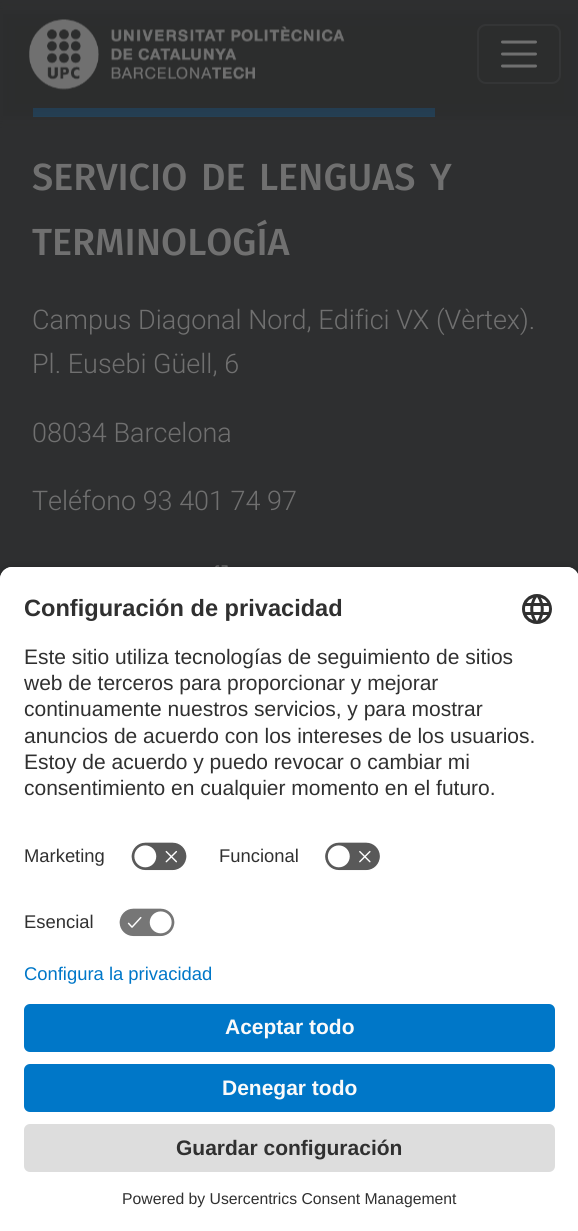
#include <cairo.h>
#include <math.h>
#include <stddef.h>

typedef struct { const char *family; double size; int italic, bold; unsigned color; } style_t;
static cairo_t *ctx;

static void ink(unsigned color) {
    cairo_set_source_rgb(ctx, (color >> 16) / 255.0, (color >> 8 & 255) / 255.0, (color & 255) / 255.0);
}

static void write(double x, double y, const char *s, const style_t *st) {
    cairo_select_font_face(ctx, st->family, st->italic ? CAIRO_FONT_SLANT_ITALIC : CAIRO_FONT_SLANT_NORMAL,
        st->bold ? CAIRO_FONT_WEIGHT_BOLD : CAIRO_FONT_WEIGHT_NORMAL);
    cairo_set_font_size(ctx, st->size);
    ink(st->color);
    cairo_move_to(ctx, x, y);
    cairo_show_text(ctx, s);
}

static void block(double x, double y, double w, double h, unsigned color) {
    ink(color);
    cairo_rectangle(ctx, x, y, w, h);
    cairo_fill(ctx);
}

static void round_path(double x, double y, double w, double h, double r) {
    cairo_new_sub_path(ctx);
    cairo_arc(ctx, x + w - r, y + h - r, r, 0, M_PI / 2);
    cairo_arc(ctx, x + r, y + h - r, r, M_PI / 2, M_PI);
    cairo_arc(ctx, x + r, y + r, r, M_PI, 1.5 * M_PI);
    cairo_arc(ctx, x + w - r, y + r, r, 1.5 * M_PI, 2 * M_PI);
    cairo_close_path(ctx);
}

static void blur_box(double x, double y, double w, double h, double r, double blur, double alpha) {
    cairo_push_group_with_content(ctx, CAIRO_CONTENT_ALPHA);
    cairo_set_operator(ctx, CAIRO_OPERATOR_SOURCE);
    for (int i = 15; i >= -15 && fmin(w, h) + blur * i / 3 > 0; i -= 2) {
        double e = blur * i / 6;
        cairo_set_source_rgba(ctx, 0, 0, 0, alpha * erfc((i - 1) / 8.5) / 2);
        round_path(x - e, y - e, w + 2 * e, h + 2 * e, fmax(0, fmin(r + e + blur * .6, fmin(w, h) / 2 + e)));
        cairo_fill(ctx);
    }
    cairo_pattern_t *soft = cairo_pop_group(ctx);
    cairo_mask(ctx, soft);
    cairo_pattern_destroy(soft);
}

static void paste(const char *path, double x, double y, double w, double h) {
    cairo_surface_t *image = cairo_image_surface_create_from_png(path);
    cairo_save(ctx);
    cairo_set_source_surface(ctx, image, x, y);
    cairo_rectangle(ctx, x, y, w, h);
    cairo_fill(ctx);
    cairo_restore(ctx);
    cairo_surface_destroy(image);
}

static const style_t s1 = {"Fira Sans Medium", 37.75, 0, 0, 0x707070};
static const style_t s2 = {"Roboto Light", 27, 0, 0, 0x707070};
static const style_t s3 = {"Liberation Sans", 23.6, 0, 1, 0x303030};
static const style_t s4 = {"Liberation Sans", 21, 0, 0, 0x303030};
static const style_t s5 = {"Liberation Sans", 18.4, 0, 0, 0x303030};
static const style_t s6 = {"Liberation Sans", 18.4, 0, 0, 0x0077c8};
static const style_t s7 = {"Liberation Sans", 21, 0, 1, 0xfafafa};
static const style_t s8 = {"Liberation Sans", 21, 0, 1, 0x303030};
static const style_t s9 = {"Liberation Sans", 15.75, 0, 0, 0x303030};

int main(void) {
    cairo_surface_t *surface = cairo_image_surface_create(CAIRO_FORMAT_RGB24, 578, 1231);
    ctx = cairo_create(surface);
    cairo_font_options_t *options = cairo_font_options_create();
    cairo_font_options_set_hint_metrics(options, CAIRO_HINT_METRICS_OFF);
    cairo_font_options_set_hint_style(options, CAIRO_HINT_STYLE_NONE);
    cairo_set_font_options(ctx, options);
    cairo_set_miter_limit(ctx, 4);
    ink(0x2e2f30);
    cairo_paint(ctx);
    paste("pic2.png", 33, 108, 402, 9);
    ink(0x242424);
    blur_box(0, 11, 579, 108, 0, 6, 0.2);
    paste("pic1.png", 29, 19, 316, 71);
    round_path(478, 25, 82, 58, 8);
    ink(0x343536);
    cairo_stroke(ctx);
    cairo_new_path(ctx);
    cairo_move_to(ctx, 502.5, 42);
    cairo_line_to(ctx, 535.5, 42);
    cairo_move_to(ctx, 502.5, 54);
    cairo_line_to(ctx, 535.5, 54);
    cairo_move_to(ctx, 502.5, 66);
    cairo_line_to(ctx, 535.5, 66);
    ink(0x707070);
    cairo_set_line_width(ctx, 3);
    cairo_set_line_cap(ctx, CAIRO_LINE_CAP_ROUND);
    cairo_stroke(ctx);
    write(32, 190, "SERVICIO", &s1);
    write(201, 190, "DE", &s1);
    write(259, 190, "LENGUAS", &s1);
    write(430, 190, "Y", &s1);
    write(32, 255, "TERMINOLOGÍA", &s1);
    write(32, 329, "Campus Diagonal Nord, Edifici VX (Vèrtex).", &s2);
    write(32, 373, "Pl. Eusebi Güell, 6", &s2);
    write(32, 442, "08034 Barcelona", &s2);
    write(32, 510, "Teléfono 93 401 74 97", &s2);
    paste("pic3.png", 215, 565, 13, 2);
    ink(0x000000);
    blur_box(0, 572, 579, 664, 12, 5, 0.8);
    ink(0xffffff);
    cairo_new_path(ctx);
    cairo_move_to(ctx, 12, 567);
    cairo_line_to(ctx, 567, 567);
    cairo_curve_to(ctx, 573.5, 567, 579, 572.5, 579, 579);
    cairo_line_to(ctx, 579, 965);
    cairo_line_to(ctx, 0, 965);
    cairo_line_to(ctx, 0, 579);
    cairo_curve_to(ctx, 0, 572.5, 5.5, 567, 12, 567);
    cairo_close_path(ctx);
    cairo_fill(ctx);
    cairo_new_path(ctx);
    cairo_move_to(ctx, 12, 567);
    cairo_line_to(ctx, 567, 567);
    cairo_curve_to(ctx, 573.5, 567, 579, 572.5, 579, 579);
    cairo_line_to(ctx, 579, 833);
    cairo_line_to(ctx, 0, 833);
    cairo_line_to(ctx, 0, 579);
    cairo_curve_to(ctx, 0, 572.5, 5.5, 567, 12, 567);
    cairo_close_path(ctx);
    cairo_fill(ctx);
    write(24, 616, "Configuración de privacidad", &s3);
    paste("pic4.png", 522, 594, 30, 30);
    write(24, 664, "Este sitio utiliza tecnologías de seguimiento de sitios", &s4);
    write(24, 690, "web de terceros para proporcionar y mejorar", &s4);
    write(24, 716, "continuamente nuestros servicios, y para mostrar", &s4);
    write(24, 743, "anuncios de acuerdo con los intereses de los usuarios.", &s4);
    write(24, 769, "Estoy de acuerdo y puedo revocar o cambiar mi", &s4);
    write(24, 795, "consentimiento en cualquier momento en el futuro.", &s4);
    write(24, 862, "Marketing", &s5);
    paste("pic5.png", 131, 842, 56, 29);
    write(219, 862, "Funcional", &s5);
    paste("pic6.png", 325, 842, 55, 29);
    write(24, 928, "Esencial", &s5);
    paste("pic7.png", 119, 908, 56, 29);
    block(0, 965, 578, 266, 0xffffff);
    write(24, 980, "Configura la privacidad", &s6);
    round_path(24, 1004, 531, 48, 6);
    cairo_fill(ctx);
    write(225, 1034, "Aceptar todo", &s7);
    ink(0x0077c8);
    round_path(24, 1064, 531, 48, 6);
    cairo_fill(ctx);
    write(222, 1095, "Denegar todo", &s7);
    ink(0xdddddd);
    round_path(24, 1124, 531, 48, 6);
    cairo_fill(ctx);
    write(176, 1155, "Guardar configuración", &s8);
    write(122, 1204, "Powered by Usercentrics Consent Management", &s9);
    cairo_surface_write_to_png(surface, "screenshot.png");
    cairo_font_options_destroy(options);
    cairo_destroy(ctx);
    cairo_surface_destroy(surface);
    return 0;
}
